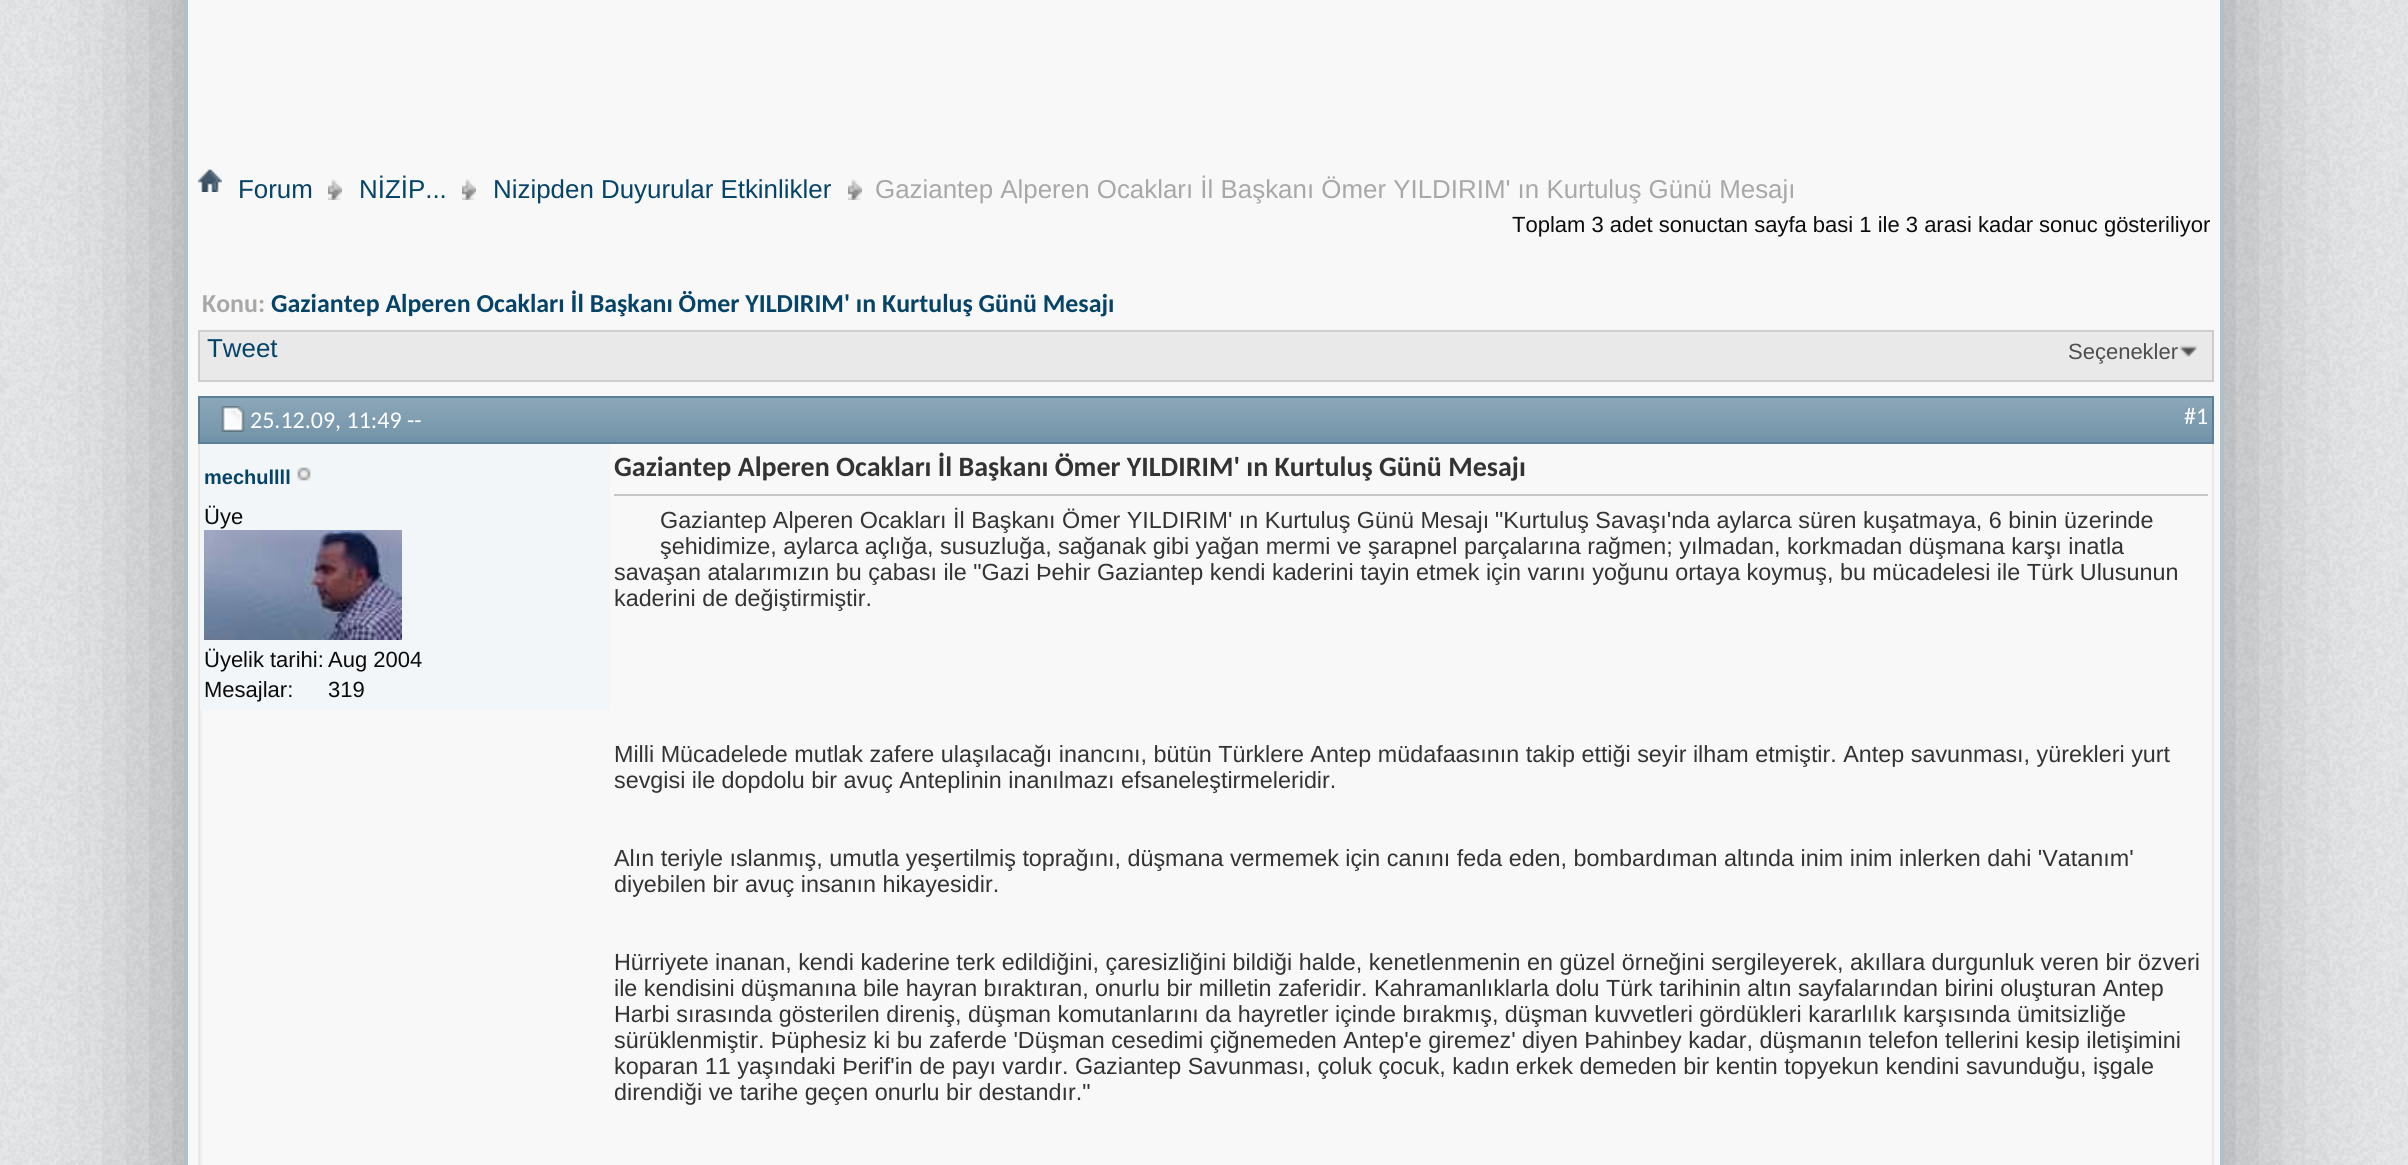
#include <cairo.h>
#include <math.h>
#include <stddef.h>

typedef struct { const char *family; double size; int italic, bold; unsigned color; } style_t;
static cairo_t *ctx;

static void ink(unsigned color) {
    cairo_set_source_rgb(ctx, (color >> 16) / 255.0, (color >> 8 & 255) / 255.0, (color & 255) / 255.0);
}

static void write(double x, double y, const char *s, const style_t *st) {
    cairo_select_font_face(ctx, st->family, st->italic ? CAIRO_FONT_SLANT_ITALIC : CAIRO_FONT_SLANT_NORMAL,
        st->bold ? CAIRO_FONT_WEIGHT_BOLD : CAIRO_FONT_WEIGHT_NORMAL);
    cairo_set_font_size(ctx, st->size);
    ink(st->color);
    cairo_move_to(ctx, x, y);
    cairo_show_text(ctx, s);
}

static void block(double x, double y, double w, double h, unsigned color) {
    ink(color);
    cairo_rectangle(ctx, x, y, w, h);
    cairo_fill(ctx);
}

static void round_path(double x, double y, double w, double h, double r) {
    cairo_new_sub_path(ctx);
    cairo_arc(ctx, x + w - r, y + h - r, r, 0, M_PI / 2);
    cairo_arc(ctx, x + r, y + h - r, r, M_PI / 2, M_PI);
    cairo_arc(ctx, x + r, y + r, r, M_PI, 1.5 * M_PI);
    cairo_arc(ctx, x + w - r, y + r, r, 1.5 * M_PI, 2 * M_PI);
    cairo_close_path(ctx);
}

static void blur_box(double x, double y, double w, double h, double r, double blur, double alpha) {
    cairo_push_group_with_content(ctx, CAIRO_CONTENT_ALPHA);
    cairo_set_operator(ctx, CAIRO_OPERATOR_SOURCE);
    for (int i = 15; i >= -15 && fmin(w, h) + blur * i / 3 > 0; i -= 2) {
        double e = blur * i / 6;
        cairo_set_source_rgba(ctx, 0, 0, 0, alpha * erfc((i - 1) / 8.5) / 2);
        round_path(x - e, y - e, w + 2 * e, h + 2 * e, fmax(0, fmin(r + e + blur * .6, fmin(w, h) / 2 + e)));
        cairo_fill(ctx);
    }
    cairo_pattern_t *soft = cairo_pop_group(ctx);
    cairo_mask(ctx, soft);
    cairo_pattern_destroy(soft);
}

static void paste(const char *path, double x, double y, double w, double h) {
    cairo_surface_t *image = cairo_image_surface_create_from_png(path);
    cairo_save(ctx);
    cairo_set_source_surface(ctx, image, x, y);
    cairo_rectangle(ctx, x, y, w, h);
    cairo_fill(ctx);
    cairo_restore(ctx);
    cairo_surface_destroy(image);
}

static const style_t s1 = {"Liberation Sans", 25.9, 0, 0, 0x054368};
static const style_t s2 = {"Liberation Sans", 25.9, 0, 0, 0xa8a8a8};
static const style_t s3 = {"Liberation Sans", 22, 0, 0, 0x0b0b0b};
static const style_t s4 = {"Carlito", 25.9, 0, 1, 0xa8a8a8};
static const style_t s5 = {"Carlito", 25.9, 0, 1, 0x054368};
static const style_t s6 = {"Liberation Sans", 22, 0, 0, 0x4e4e4e};
static const style_t s7 = {"Carlito", 24, 0, 0, 0xffffff};
static const style_t s8 = {"Liberation Sans", 20, 0, 1, 0x054368};
static const style_t s9 = {"Carlito", 28, 0, 1, 0x333333};
static const style_t s10 = {"Liberation Sans", 23.33, 0, 0, 0x333333};

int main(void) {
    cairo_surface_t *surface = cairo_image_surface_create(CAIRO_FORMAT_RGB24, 2408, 1165);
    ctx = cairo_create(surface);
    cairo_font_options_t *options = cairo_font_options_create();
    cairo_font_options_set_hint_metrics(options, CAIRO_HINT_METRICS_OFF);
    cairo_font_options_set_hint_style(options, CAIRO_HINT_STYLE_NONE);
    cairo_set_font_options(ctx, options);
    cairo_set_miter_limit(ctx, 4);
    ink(0xffffff);
    cairo_paint(ctx);
    paste("pic1.png", 0, 0, 2408, 1165);
    ink(0x000000);
    blur_box(184, -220, 2040, 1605, 10, 70, 0.3);
    ink(0xf8f8f8);
    cairo_rectangle(ctx, 186, -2, 2036, 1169);
    cairo_fill_preserve(ctx);
    ink(0xaebfca);
    cairo_set_line_width(ctx, 4);
    cairo_stroke(ctx);
    paste("pic2.png", 198, 169, 24, 23);
    paste("pic3.png", 328, 179, 14, 21);
    write(238, 198, "Forum", &s1);
    paste("pic3.png", 462, 179, 14, 21);
    write(359, 198, "NİZİP...", &s1);
    paste("pic3.png", 848, 179, 14, 21);
    write(493, 198, "Nizipden Duyurular Etkinlikler", &s1);
    write(875, 198, "Gaziantep Alperen Ocakları İl Başkanı Ömer YILDIRIM' ın Kurtuluş Günü Mesajı", &s2);
    write(1512, 232, "Toplam 3 adet sonuctan sayfa basi 1 ile 3 arasi kadar sonuc gösteriliyor", &s3);
    write(202, 312, "Konu:", &s4);
    write(271, 312, "Gaziantep Alperen Ocakları İl Başkanı Ömer YILDIRIM' ın Kurtuluş Günü Mesajı", &s5);
    block(200, 333, 2012, 47, 0xe9e9e9);
    block(198, 332, 2016, 1, 0xededed);
    cairo_rectangle(ctx, 199, 331, 2014, 50);
    ink(0xcecece);
    cairo_set_line_width(ctx, 2);
    cairo_stroke(ctx);
    write(207, 357, "Tweet", &s1);
    paste("pic4.png", 2179, 345, 19, 13);
    write(2068, 359, "Seçenekler", &s6);
    cairo_rectangle(ctx, 199, 397, 2014, 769);
    ink(0xe9e9e9);
    cairo_stroke(ctx);
    block(200, 398, 2012, 44, 0x7192a8);
    paste("pic5.png", 200, 398, 2012, 39);
    cairo_rectangle(ctx, 199, 397, 2014, 46);
    ink(0x5a7f97);
    cairo_stroke(ctx);
    paste("pic6.png", 221, 406, 24, 26);
    write(250, 428, "25.12.09, 11:49 --", &s7);
    write(2184, 424, "#1", &s7);
    block(200, 444, 410, 266, 0xf2f6f8);
    write(204, 484, "mechullll", &s8);
    paste("pic7.png", 297, 467, 14, 14);
    write(204, 524, "Üye", &s3);
    paste("pic8.png", 204, 530, 198, 110);
    write(204, 667, "Üyelik tarihi:", &s3);
    write(328, 667, "Aug 2004", &s3);
    write(204, 697, "Mesajlar:", &s3);
    write(328, 697, "319", &s3);
    block(200, 710, 2, 455, 0xefefef);
    block(614, 494, 1594, 2, 0xc8c8c8);
    write(614, 476, "Gaziantep Alperen Ocakları İl Başkanı Ömer YILDIRIM' ın Kurtuluş Günü Mesajı", &s9);
    write(660, 528, "Gaziantep Alperen Ocakları İl Başkanı Ömer YILDIRIM' ın Kurtuluş Günü Mesajı", &s10);
    write(1495, 528, "\"Kurtuluş Savaşı'nda aylarca süren kuşatmaya, 6 binin üzerinde", &s10);
    write(660, 554, "şehidimize, aylarca açlığa, susuzluğa, sağanak gibi yağan mermi ve şarapnel parçalarına rağmen; yılmadan, korkmadan düşmana karşı inatla", &s10);
    write(614, 580, "savaşan atalarımızın bu çabası ile \"Gazi Þehir Gaziantep kendi kaderini tayin etmek için varını yoğunu ortaya koymuş, bu mücadelesi ile Türk Ulusunun", &s10);
    write(614, 606, "kaderini de değiştirmiştir.", &s10);
    write(614, 762, "Milli Mücadelede mutlak zafere ulaşılacağı inancını, bütün Türklere Antep müdafaasının takip ettiği seyir ilham etmiştir. Antep savunması, yürekleri yurt", &s10);
    write(614, 788, "sevgisi ile dopdolu bir avuç Anteplinin inanılmazı efsaneleştirmeleridir.", &s10);
    write(614, 866, "Alın teriyle ıslanmış, umutla yeşertilmiş toprağını, düşmana vermemek için canını feda eden, bombardıman altında inim inim inlerken dahi 'Vatanım'", &s10);
    write(614, 892, "diyebilen bir avuç insanın hikayesidir.", &s10);
    write(614, 970, "Hürriyete inanan, kendi kaderine terk edildiğini, çaresizliğini bildiği halde, kenetlenmenin en güzel örneğini sergileyerek, akıllara durgunluk veren bir özveri", &s10);
    write(614, 996, "ile kendisini düşmanına bile hayran bıraktıran, onurlu bir milletin zaferidir. Kahramanlıklarla dolu Türk tarihinin altın sayfalarından birini oluşturan Antep", &s10);
    write(614, 1022, "Harbi sırasında gösterilen direniş, düşman komutanlarını da hayretler içinde bırakmış, düşman kuvvetleri gördükleri kararlılık karşısında ümitsizliğe", &s10);
    write(614, 1048, "sürüklenmiştir. Þüphesiz ki bu zaferde 'Düşman cesedimi çiğnemeden Antep'e giremez' diyen Þahinbey kadar, düşmanın telefon tellerini kesip iletişimini", &s10);
    write(614, 1074, "koparan 11 yaşındaki Þerif'in de payı vardır. Gaziantep Savunması, çoluk çocuk, kadın erkek demeden bir kentin topyekun kendini savunduğu, işgale", &s10);
    write(614, 1100, "direndiği ve tarihe geçen onurlu bir destandır.\"", &s10);
    cairo_surface_write_to_png(surface, "screenshot.png");
    cairo_font_options_destroy(options);
    cairo_destroy(ctx);
    cairo_surface_destroy(surface);
    return 0;
}
